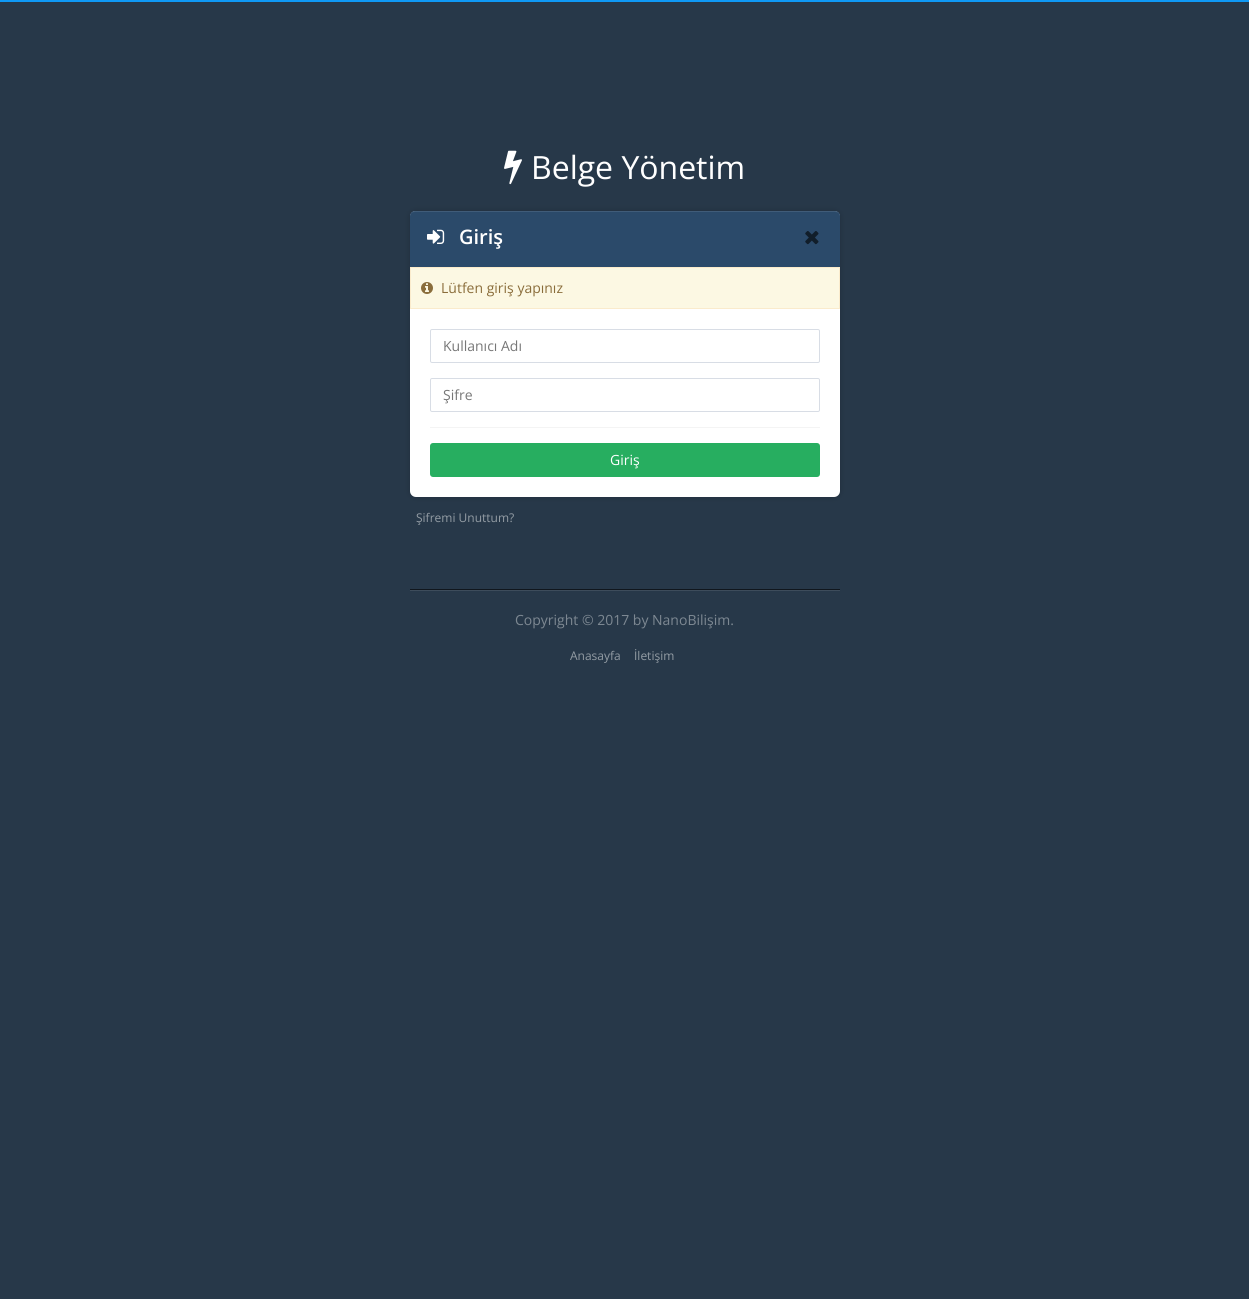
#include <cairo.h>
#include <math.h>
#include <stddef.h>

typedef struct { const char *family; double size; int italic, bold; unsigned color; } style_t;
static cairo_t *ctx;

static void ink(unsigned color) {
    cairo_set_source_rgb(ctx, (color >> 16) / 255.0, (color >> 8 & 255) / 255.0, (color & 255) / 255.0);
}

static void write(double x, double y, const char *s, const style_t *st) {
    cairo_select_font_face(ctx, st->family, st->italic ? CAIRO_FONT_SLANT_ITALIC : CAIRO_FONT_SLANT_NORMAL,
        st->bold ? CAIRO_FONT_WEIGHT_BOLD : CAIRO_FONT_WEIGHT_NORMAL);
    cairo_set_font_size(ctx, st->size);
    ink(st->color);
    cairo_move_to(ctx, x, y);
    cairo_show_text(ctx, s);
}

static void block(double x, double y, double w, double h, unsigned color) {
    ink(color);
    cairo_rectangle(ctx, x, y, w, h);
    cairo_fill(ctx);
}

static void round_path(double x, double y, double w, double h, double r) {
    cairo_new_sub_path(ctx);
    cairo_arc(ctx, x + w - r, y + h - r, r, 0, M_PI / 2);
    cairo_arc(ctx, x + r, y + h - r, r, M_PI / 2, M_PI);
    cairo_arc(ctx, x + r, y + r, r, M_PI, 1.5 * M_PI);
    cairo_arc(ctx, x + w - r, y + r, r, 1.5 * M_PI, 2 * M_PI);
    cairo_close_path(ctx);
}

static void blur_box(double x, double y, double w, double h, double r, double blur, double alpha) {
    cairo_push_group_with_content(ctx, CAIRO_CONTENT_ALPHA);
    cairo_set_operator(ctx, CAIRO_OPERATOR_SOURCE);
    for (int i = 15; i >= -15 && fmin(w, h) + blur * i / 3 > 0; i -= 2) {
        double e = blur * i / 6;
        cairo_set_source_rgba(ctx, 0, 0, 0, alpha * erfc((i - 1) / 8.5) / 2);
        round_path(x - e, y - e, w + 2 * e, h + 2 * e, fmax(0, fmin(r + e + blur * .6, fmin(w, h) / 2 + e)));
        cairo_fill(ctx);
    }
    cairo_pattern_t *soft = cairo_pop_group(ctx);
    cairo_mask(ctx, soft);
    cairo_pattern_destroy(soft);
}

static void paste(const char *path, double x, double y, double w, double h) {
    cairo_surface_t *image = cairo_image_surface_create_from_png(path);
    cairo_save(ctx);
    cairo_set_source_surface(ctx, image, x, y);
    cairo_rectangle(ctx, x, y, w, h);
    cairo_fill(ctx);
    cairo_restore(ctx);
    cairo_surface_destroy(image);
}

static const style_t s1 = {"Open Sans", 32, 0, 0, 0xffffff};
static const style_t s2 = {"Open Sans SemiBold", 20, 0, 0, 0xffffff};
static const style_t s3 = {"Open Sans", 14, 0, 0, 0x8a6d3b};
static const style_t s4 = {"Open Sans", 14, 0, 0, 0x777777};
static const style_t s5 = {"Open Sans", 14, 0, 0, 0xffffff};
static const style_t s6 = {"Open Sans", 12, 0, 0, 0x939ca4};
static const style_t s7 = {"Open Sans", 14, 0, 0, 0x7d8892};

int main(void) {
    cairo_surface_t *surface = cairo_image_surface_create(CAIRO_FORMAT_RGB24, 1249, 1299);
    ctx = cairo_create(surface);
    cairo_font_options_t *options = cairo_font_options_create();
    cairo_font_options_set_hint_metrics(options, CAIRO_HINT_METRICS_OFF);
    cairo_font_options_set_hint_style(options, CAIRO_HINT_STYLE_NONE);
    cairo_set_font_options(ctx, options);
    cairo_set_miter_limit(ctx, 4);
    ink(0x273849);
    cairo_paint(ctx);
    block(0, 0, 1249, 2, 0x0f99f5);
    paste("pic1.png", 504, 150, 18, 35);
    write(531, 179, "Belge Yönetim", &s1);
    ink(0x000000);
    blur_box(410, 211, 430, 286, 6, 3, 0.2);
    ink(0xffffff);
    round_path(410, 211, 430, 286, 6);
    cairo_fill(ctx);
    ink(0x2b4a6a);
    cairo_new_path(ctx);
    cairo_move_to(ctx, 415, 211);
    cairo_line_to(ctx, 835, 211);
    cairo_curve_to(ctx, 838, 211, 840, 213, 840, 216);
    cairo_line_to(ctx, 840, 267);
    cairo_line_to(ctx, 410, 267);
    cairo_line_to(ctx, 410, 216);
    cairo_curve_to(ctx, 410, 213, 412, 211, 415, 211);
    cairo_close_path(ctx);
    cairo_fill(ctx);
    cairo_set_source_rgba(ctx, 1, 1, 1, 0.1);
    cairo_new_path(ctx);
    cairo_move_to(ctx, 415, 212);
    cairo_line_to(ctx, 835, 212);
    cairo_curve_to(ctx, 838, 212, 840, 214, 840, 217);
    cairo_curve_to(ctx, 840, 214, 838, 211, 835, 211);
    cairo_line_to(ctx, 415, 211);
    cairo_curve_to(ctx, 412, 211, 410, 214, 410, 217);
    cairo_curve_to(ctx, 410, 214, 412, 212, 415, 212);
    cairo_close_path(ctx);
    cairo_fill(ctx);
    paste("pic2.png", 427, 229, 18, 15);
    write(459, 244, "Giriş", &s2);
    paste("pic3.png", 805, 231, 14, 14);
    ink(0xfcf8e3);
    cairo_rectangle(ctx, 410.5, 267.5, 429, 41);
    cairo_fill_preserve(ctx);
    ink(0xfaebcc);
    cairo_set_line_width(ctx, 1);
    cairo_stroke(ctx);
    paste("pic4.png", 421, 282, 12, 12);
    write(441, 293, "Lütfen giriş yapınız", &s3);
    round_path(430.5, 329.5, 389, 33, 1.5);
    ink(0xd8dde5);
    cairo_stroke(ctx);
    write(443, 351, "Kullanıcı Adı", &s4);
    round_path(430.5, 378.5, 389, 33, 1.5);
    ink(0xd8dde5);
    cairo_stroke(ctx);
    write(443, 400, "Şifre", &s4);
    block(430, 427, 390, 1, 0xf4f4f4);
    ink(0x27ae60);
    round_path(430, 443, 390, 34, 3);
    cairo_fill(ctx);
    write(610, 465, "Giriş", &s5);
    write(416, 522, "Şifremi Unuttum?", &s6);
    block(410, 590, 430, 1, 0x3d4c5b);
    block(410, 589, 430, 1, 0x10161d);
    write(515, 625, "Copyright © 2017 by NanoBilişim.", &s7);
    write(570, 660, "Anasayfa", &s6);
    write(634, 660, "İletişim", &s6);
    cairo_surface_write_to_png(surface, "screenshot.png");
    cairo_font_options_destroy(options);
    cairo_destroy(ctx);
    cairo_surface_destroy(surface);
    return 0;
}
